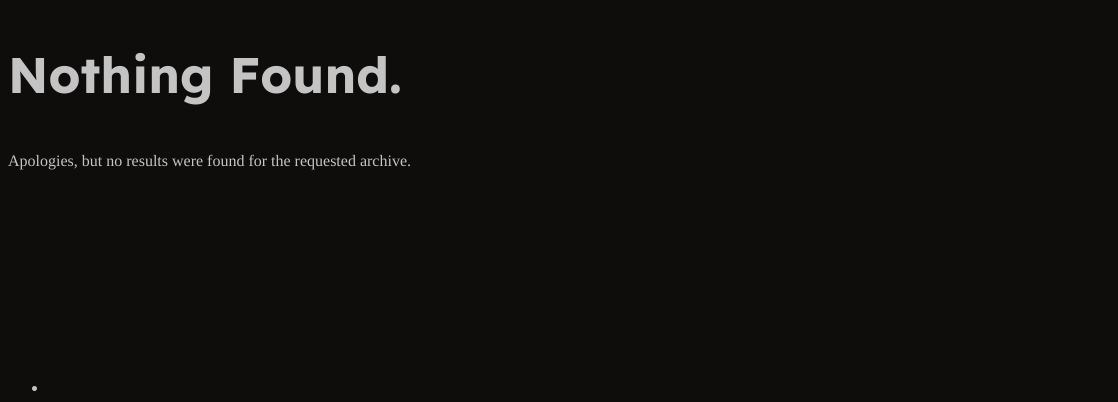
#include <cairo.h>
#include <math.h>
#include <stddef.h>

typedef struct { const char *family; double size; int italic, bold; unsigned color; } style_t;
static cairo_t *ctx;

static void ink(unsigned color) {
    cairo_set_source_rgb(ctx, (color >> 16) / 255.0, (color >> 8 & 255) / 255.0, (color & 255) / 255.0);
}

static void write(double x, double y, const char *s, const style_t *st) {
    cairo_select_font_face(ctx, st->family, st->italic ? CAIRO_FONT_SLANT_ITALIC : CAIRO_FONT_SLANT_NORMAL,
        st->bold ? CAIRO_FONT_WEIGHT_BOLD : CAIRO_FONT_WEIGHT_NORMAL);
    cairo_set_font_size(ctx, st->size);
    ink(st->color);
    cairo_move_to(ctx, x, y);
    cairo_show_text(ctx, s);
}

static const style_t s1 = {"Readex Pro", 50, 0, 1, 0xc4c4c4};
static const style_t s2 = {"Liberation Serif", 16, 0, 0, 0xc4c4c4};

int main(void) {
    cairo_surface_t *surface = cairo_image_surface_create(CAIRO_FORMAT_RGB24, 1118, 402);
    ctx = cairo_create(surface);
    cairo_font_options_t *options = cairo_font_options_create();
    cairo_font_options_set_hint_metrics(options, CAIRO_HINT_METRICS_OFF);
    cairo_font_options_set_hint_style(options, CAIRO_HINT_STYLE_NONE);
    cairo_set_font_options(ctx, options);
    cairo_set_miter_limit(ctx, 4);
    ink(0x0f0c0c);
    cairo_paint(ctx);
    write(8, 93, "Nothing Found.", &s1);
    write(8, 166, "Apologies, but no results were found for the requested archive.", &s2);
    cairo_new_path(ctx);
    cairo_arc(ctx, 34.5, 388.5, 2.5, 0, 2 * M_PI);
    cairo_fill(ctx);
    cairo_surface_write_to_png(surface, "screenshot.png");
    cairo_font_options_destroy(options);
    cairo_destroy(ctx);
    cairo_surface_destroy(surface);
    return 0;
}
